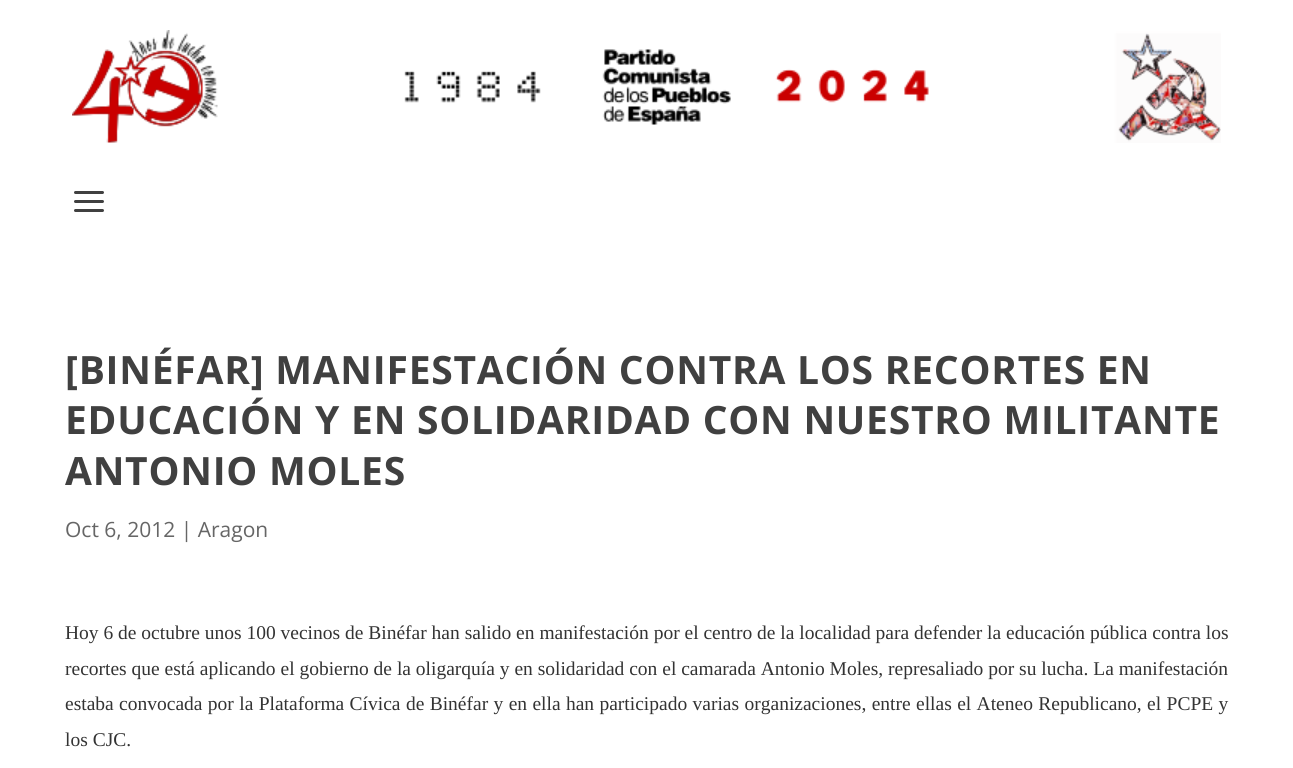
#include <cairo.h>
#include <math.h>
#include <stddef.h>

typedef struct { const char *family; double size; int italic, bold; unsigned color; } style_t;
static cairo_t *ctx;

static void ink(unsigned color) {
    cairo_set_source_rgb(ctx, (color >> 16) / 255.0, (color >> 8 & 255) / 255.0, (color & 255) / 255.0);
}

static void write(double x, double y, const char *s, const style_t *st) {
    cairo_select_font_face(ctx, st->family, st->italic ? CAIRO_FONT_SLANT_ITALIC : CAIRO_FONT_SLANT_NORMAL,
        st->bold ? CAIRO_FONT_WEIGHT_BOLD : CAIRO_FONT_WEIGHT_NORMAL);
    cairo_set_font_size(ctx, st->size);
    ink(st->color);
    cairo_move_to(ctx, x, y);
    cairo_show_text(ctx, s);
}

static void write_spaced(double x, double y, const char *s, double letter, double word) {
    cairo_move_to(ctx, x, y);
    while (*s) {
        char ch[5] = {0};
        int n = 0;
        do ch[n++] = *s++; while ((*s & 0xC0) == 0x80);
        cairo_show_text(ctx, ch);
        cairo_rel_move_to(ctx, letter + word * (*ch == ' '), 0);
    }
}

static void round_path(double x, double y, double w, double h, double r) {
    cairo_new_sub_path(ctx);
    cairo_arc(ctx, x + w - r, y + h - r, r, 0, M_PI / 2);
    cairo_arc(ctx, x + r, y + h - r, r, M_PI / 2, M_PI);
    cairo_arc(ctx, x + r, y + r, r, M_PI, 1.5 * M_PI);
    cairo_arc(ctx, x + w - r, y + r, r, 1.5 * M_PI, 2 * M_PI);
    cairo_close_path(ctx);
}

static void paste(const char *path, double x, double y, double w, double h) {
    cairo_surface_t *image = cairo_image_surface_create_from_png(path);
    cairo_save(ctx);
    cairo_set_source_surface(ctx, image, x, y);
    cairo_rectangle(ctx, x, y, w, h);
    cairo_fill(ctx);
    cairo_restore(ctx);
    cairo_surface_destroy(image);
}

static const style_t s1 = {"Open Sans", 21, 0, 0, 0x666666};
static const style_t s2 = {"Liberation Serif", 19.5, 0, 0, 0x333333};

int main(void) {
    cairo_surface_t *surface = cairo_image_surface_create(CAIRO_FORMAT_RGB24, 1293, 768);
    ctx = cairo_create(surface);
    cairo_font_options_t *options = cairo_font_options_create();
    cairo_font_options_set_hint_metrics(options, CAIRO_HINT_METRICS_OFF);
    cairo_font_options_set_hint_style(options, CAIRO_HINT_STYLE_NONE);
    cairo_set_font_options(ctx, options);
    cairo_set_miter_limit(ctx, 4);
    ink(0xffffff);
    cairo_paint(ctx);
    paste("pic1.png", 72, 30, 1149, 113);
    ink(0x404040);
    round_path(74, 191, 30, 3, 1.5);
    cairo_fill(ctx);
    round_path(74, 200, 30, 3, 1.5);
    cairo_fill(ctx);
    round_path(74, 209, 30, 3, 1.5);
    cairo_fill(ctx);
    cairo_select_font_face(ctx, "Open Sans", CAIRO_FONT_SLANT_NORMAL, CAIRO_FONT_WEIGHT_BOLD);
    cairo_set_font_size(ctx, 39);
    write_spaced(65, 384, "[BINÉFAR] MANIFESTACIÓN CONTRA LOS RECORTES EN", 0.75, 0);
    write_spaced(65, 434, "EDUCACIÓN Y EN SOLIDARIDAD CON NUESTRO MILITANTE", 0.75, 0);
    write_spaced(65, 485, "ANTONIO MOLES", 0.75, 0);
    write(65, 537, "Oct 6, 2012 | Aragon", &s1);
    write(65, 639, "Hoy 6 de octubre unos 100 vecinos de Binéfar han salido en manifestación por el centro de la localidad para defender la educación pública contra los", &s2);
    write(65, 675, "recortes que está aplicando el gobierno de la oligarquía y en solidaridad con el camarada Antonio Moles, represaliado por su lucha. La manifestación", &s2);
    write_spaced(65, 710, "estaba convocada por la Plataforma Cívica de Binéfar y en ella han participado varias organizaciones, entre ellas el Ateneo Republicano, el PCPE y", 0, 0.5);
    write(65, 746, "los CJC.", &s2);
    cairo_surface_write_to_png(surface, "screenshot.png");
    cairo_font_options_destroy(options);
    cairo_destroy(ctx);
    cairo_surface_destroy(surface);
    return 0;
}
